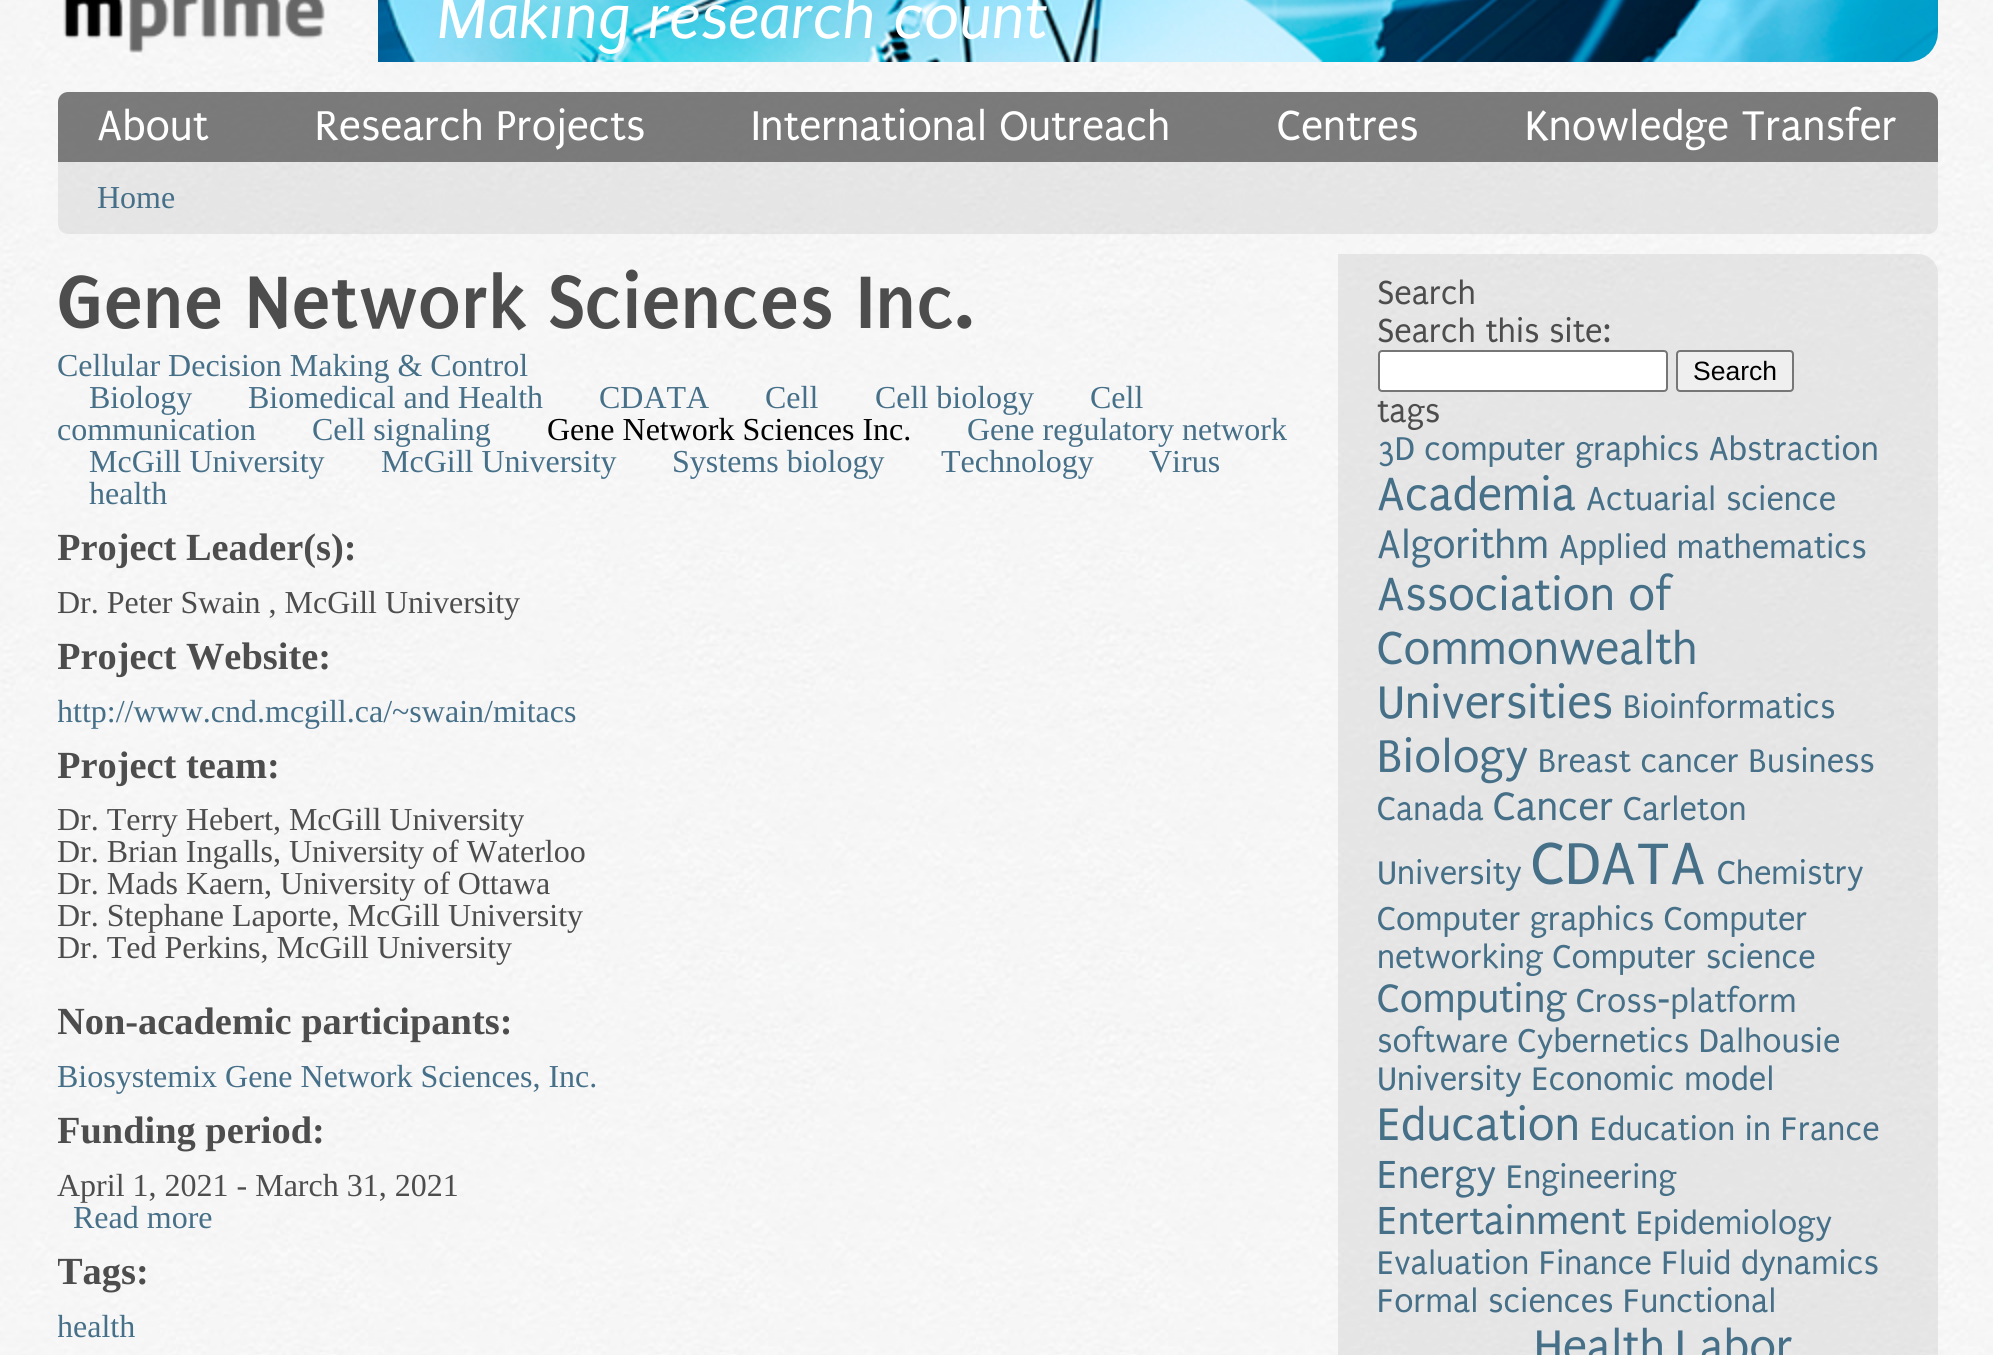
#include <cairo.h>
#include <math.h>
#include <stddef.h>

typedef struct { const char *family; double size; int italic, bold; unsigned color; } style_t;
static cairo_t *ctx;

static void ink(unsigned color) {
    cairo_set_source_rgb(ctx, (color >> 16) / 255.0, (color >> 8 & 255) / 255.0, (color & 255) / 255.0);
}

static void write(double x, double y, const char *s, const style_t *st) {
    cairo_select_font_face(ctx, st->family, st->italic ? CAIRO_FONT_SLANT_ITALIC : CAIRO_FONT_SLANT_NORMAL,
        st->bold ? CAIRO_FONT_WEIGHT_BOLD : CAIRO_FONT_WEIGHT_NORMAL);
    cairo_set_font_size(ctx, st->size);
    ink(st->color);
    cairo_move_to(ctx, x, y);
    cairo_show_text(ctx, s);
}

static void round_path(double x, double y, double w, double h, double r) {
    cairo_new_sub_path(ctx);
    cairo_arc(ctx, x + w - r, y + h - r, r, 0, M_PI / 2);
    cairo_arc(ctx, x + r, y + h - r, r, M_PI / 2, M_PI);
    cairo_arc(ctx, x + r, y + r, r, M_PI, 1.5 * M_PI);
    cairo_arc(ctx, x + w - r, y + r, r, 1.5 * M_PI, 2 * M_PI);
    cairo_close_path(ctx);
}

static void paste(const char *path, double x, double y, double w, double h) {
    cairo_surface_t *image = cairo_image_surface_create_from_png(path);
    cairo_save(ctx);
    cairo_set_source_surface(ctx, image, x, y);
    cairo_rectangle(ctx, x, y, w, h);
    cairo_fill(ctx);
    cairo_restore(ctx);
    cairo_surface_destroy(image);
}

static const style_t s1 = {"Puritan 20", 64, 1, 0, 0xfefffe};
static const style_t s2 = {"Puritan 20", 44.75, 0, 0, 0xfefffe};
static const style_t s3 = {"Liberation Serif", 32, 0, 0, 0x466f88};
static const style_t s4 = {"Puritan 20", 80, 0, 1, 0x4d4d4d};
static const style_t s5 = {"Liberation Serif", 32, 0, 0, 0x000000};
static const style_t s6 = {"Liberation Serif", 38.4, 0, 1, 0x4d4d4d};
static const style_t s7 = {"Liberation Serif", 32, 0, 0, 0x4d4d4d};
static const style_t s8 = {"Puritan 20", 35.25, 0, 0, 0x4d4d4d};
static const style_t s9 = {"Liberation Sans", 26.5, 0, 0, 0x000000};
static const style_t s10 = {"Puritan 20", 35.25, 0, 0, 0x466f88};
static const style_t s11 = {"Puritan 20", 49.25, 0, 0, 0x466f88};
static const style_t s12 = {"Puritan 20", 42.25, 0, 0, 0x466f88};
static const style_t s13 = {"Puritan 20", 63, 0, 0, 0x466f88};

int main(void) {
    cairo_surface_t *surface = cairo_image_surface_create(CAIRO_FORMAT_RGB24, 1993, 1355);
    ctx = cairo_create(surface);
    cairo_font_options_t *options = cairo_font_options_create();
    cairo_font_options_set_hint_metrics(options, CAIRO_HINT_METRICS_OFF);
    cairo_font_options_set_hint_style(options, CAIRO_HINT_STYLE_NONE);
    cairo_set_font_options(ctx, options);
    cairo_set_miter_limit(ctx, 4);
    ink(0xffffff);
    cairo_paint(ctx);
    paste("pic1.png", 0, 0, 1993, 1355);
    paste("pic2.png", 63, 0, 262, 53);
    paste("pic3.png", 378, 0, 1560, 62);
    write(437, 38, "Making research count", &s1);
    cairo_set_source_rgba(ctx, 0.278, 0.278, 0.278, 0.7);
    cairo_new_path(ctx);
    cairo_move_to(ctx, 68, 92);
    cairo_line_to(ctx, 1928, 92);
    cairo_curve_to(ctx, 1933.5, 92, 1938, 96.5, 1938, 102);
    cairo_line_to(ctx, 1938, 162);
    cairo_line_to(ctx, 58, 162);
    cairo_line_to(ctx, 58, 102);
    cairo_curve_to(ctx, 58, 96.5, 62.5, 92, 68, 92);
    cairo_close_path(ctx);
    cairo_fill(ctx);
    write(97, 140, "About", &s2);
    write(315, 140, "Research Projects", &s2);
    write(751, 140, "International Outreach", &s2);
    write(1277, 140, "Centres", &s2);
    write(1525, 140, "Knowledge Transfer", &s2);
    cairo_set_source_rgba(ctx, 0.718, 0.718, 0.718, 0.25);
    cairo_new_path(ctx);
    cairo_move_to(ctx, 58, 162);
    cairo_line_to(ctx, 1938, 162);
    cairo_line_to(ctx, 1938, 224);
    cairo_curve_to(ctx, 1938, 229.5, 1933.5, 234, 1928, 234);
    cairo_line_to(ctx, 68, 234);
    cairo_curve_to(ctx, 62.5, 234, 58, 229.5, 58, 224);
    cairo_close_path(ctx);
    cairo_fill(ctx);
    write(97, 208, "Home", &s3);
    write(57, 328, "Gene Network Sciences Inc.", &s4);
    write(57, 376, "Cellular Decision Making & Control", &s3);
    write(89, 408, "Biology", &s3);
    write(248, 408, "Biomedical and Health", &s3);
    write(599, 408, "CDATA", &s3);
    write(765, 408, "Cell", &s3);
    write(875, 408, "Cell biology", &s3);
    write(1090, 408, "Cell", &s3);
    write(57, 440, "communication", &s3);
    write(312, 440, "Cell signaling", &s3);
    write(547, 440, "Gene Network Sciences Inc.", &s5);
    write(967, 440, "Gene regulatory network", &s3);
    write(89, 472, "McGill University", &s3);
    write(381, 472, "McGill University", &s3);
    write(672, 472, "Systems biology", &s3);
    write(941, 472, "Technology", &s3);
    write(1149, 472, "Virus", &s3);
    write(89, 504, "health", &s3);
    cairo_save(ctx);
    cairo_rectangle(ctx, 58, 350, 1240, 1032);
    cairo_clip(ctx);
    write(57, 560, "Project Leader(s):", &s6);
    cairo_restore(ctx);
    write(57, 613, "Dr. Peter Swain , McGill University", &s7);
    cairo_save(ctx);
    cairo_rectangle(ctx, 58, 350, 1240, 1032);
    cairo_clip(ctx);
    write(57, 669, "Project Website:", &s6);
    write(57, 722, "http://www.cnd.mcgill.ca/~swain/mitacs", &s3);
    write(57, 778, "Project team:", &s6);
    cairo_restore(ctx);
    write(57, 830, "Dr. Terry Hebert, McGill University", &s7);
    write(57, 862, "Dr. Brian Ingalls, University of Waterloo", &s7);
    write(57, 894, "Dr. Mads Kaern, University of Ottawa", &s7);
    write(57, 926, "Dr. Stephane Laporte, McGill University", &s7);
    write(57, 958, "Dr. Ted Perkins, McGill University", &s7);
    cairo_save(ctx);
    cairo_rectangle(ctx, 58, 350, 1240, 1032);
    cairo_clip(ctx);
    write(57, 1034, "Non-academic participants:", &s6);
    cairo_restore(ctx);
    write(57, 1087, "Biosystemix Gene Network Sciences, Inc.", &s3);
    cairo_save(ctx);
    cairo_rectangle(ctx, 58, 350, 1240, 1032);
    cairo_clip(ctx);
    write(57, 1143, "Funding period:", &s6);
    cairo_restore(ctx);
    write(57, 1196, "April 1, 2021 - March 31, 2021", &s7);
    write(73, 1228, "Read more", &s3);
    cairo_save(ctx);
    cairo_rectangle(ctx, 58, 350, 1240, 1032);
    cairo_clip(ctx);
    write(57, 1284, "Tags:", &s6);
    write(57, 1337, "health", &s3);
    cairo_restore(ctx);
    cairo_set_source_rgba(ctx, 0.718, 0.718, 0.718, 0.25);
    cairo_new_path(ctx);
    cairo_move_to(ctx, 1338, 254);
    cairo_line_to(ctx, 1918, 254);
    cairo_curve_to(ctx, 1929, 254, 1938, 263, 1938, 274);
    cairo_line_to(ctx, 1938, 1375);
    cairo_line_to(ctx, 1358, 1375);
    cairo_curve_to(ctx, 1347, 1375, 1338, 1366, 1338, 1355);
    cairo_close_path(ctx);
    cairo_fill(ctx);
    write(1377, 304, "Search", &s8);
    write(1377, 342, "Search this site:", &s8);
    ink(0xffffff);
    round_path(1379, 351, 288, 40, 3);
    cairo_fill_preserve(ctx);
    ink(0x767676);
    cairo_stroke(ctx);
    ink(0xefefef);
    round_path(1677, 351, 116, 40, 3);
    cairo_fill_preserve(ctx);
    ink(0x767676);
    cairo_stroke(ctx);
    write(1693, 380, "Search", &s9);
    write(1377, 422, "tags", &s8);
    write(1377, 460, "3D computer graphics Abstraction", &s10);
    write(1377, 510, "Academia", &s11);
    write(1586, 510, "Actuarial science", &s10);
    write(1377, 558, "Algorithm", &s12);
    write(1559, 558, "Applied mathematics", &s10);
    write(1377, 610, "Association of", &s11);
    write(1377, 664, "Commonwealth", &s11);
    write(1377, 718, "Universities", &s11);
    write(1623, 718, "Bioinformatics", &s10);
    write(1377, 772, "Biology", &s11);
    write(1538, 772, "Breast cancer Business", &s10);
    write(1377, 820, "Canada", &s10);
    write(1493, 820, "Cancer", &s12);
    write(1623, 820, "Carleton", &s10);
    write(1377, 884, "University", &s10);
    write(1531, 884, "CDATA", &s13);
    write(1717, 884, "Chemistry", &s10);
    write(1377, 930, "Computer graphics Computer", &s10);
    write(1377, 968, "networking Computer science", &s10);
    write(1377, 1012, "Computing", &s12);
    write(1576, 1012, "Cross-platform", &s10);
    write(1377, 1052, "software Cybernetics Dalhousie", &s10);
    write(1377, 1090, "University Economic model", &s10);
    write(1377, 1140, "Education", &s11);
    write(1590, 1140, "Education in France", &s10);
    write(1377, 1188, "Energy", &s12);
    write(1506, 1188, "Engineering", &s10);
    write(1377, 1234, "Entertainment", &s12);
    write(1636, 1234, "Epidemiology", &s10);
    write(1377, 1274, "Evaluation Finance Fluid dynamics", &s10);
    write(1377, 1312, "Formal sciences Functional", &s10);
    write(1534, 1362, "Health", &s11);
    write(1675, 1362, "Labor", &s11);
    cairo_surface_write_to_png(surface, "screenshot.png");
    cairo_font_options_destroy(options);
    cairo_destroy(ctx);
    cairo_surface_destroy(surface);
    return 0;
}
